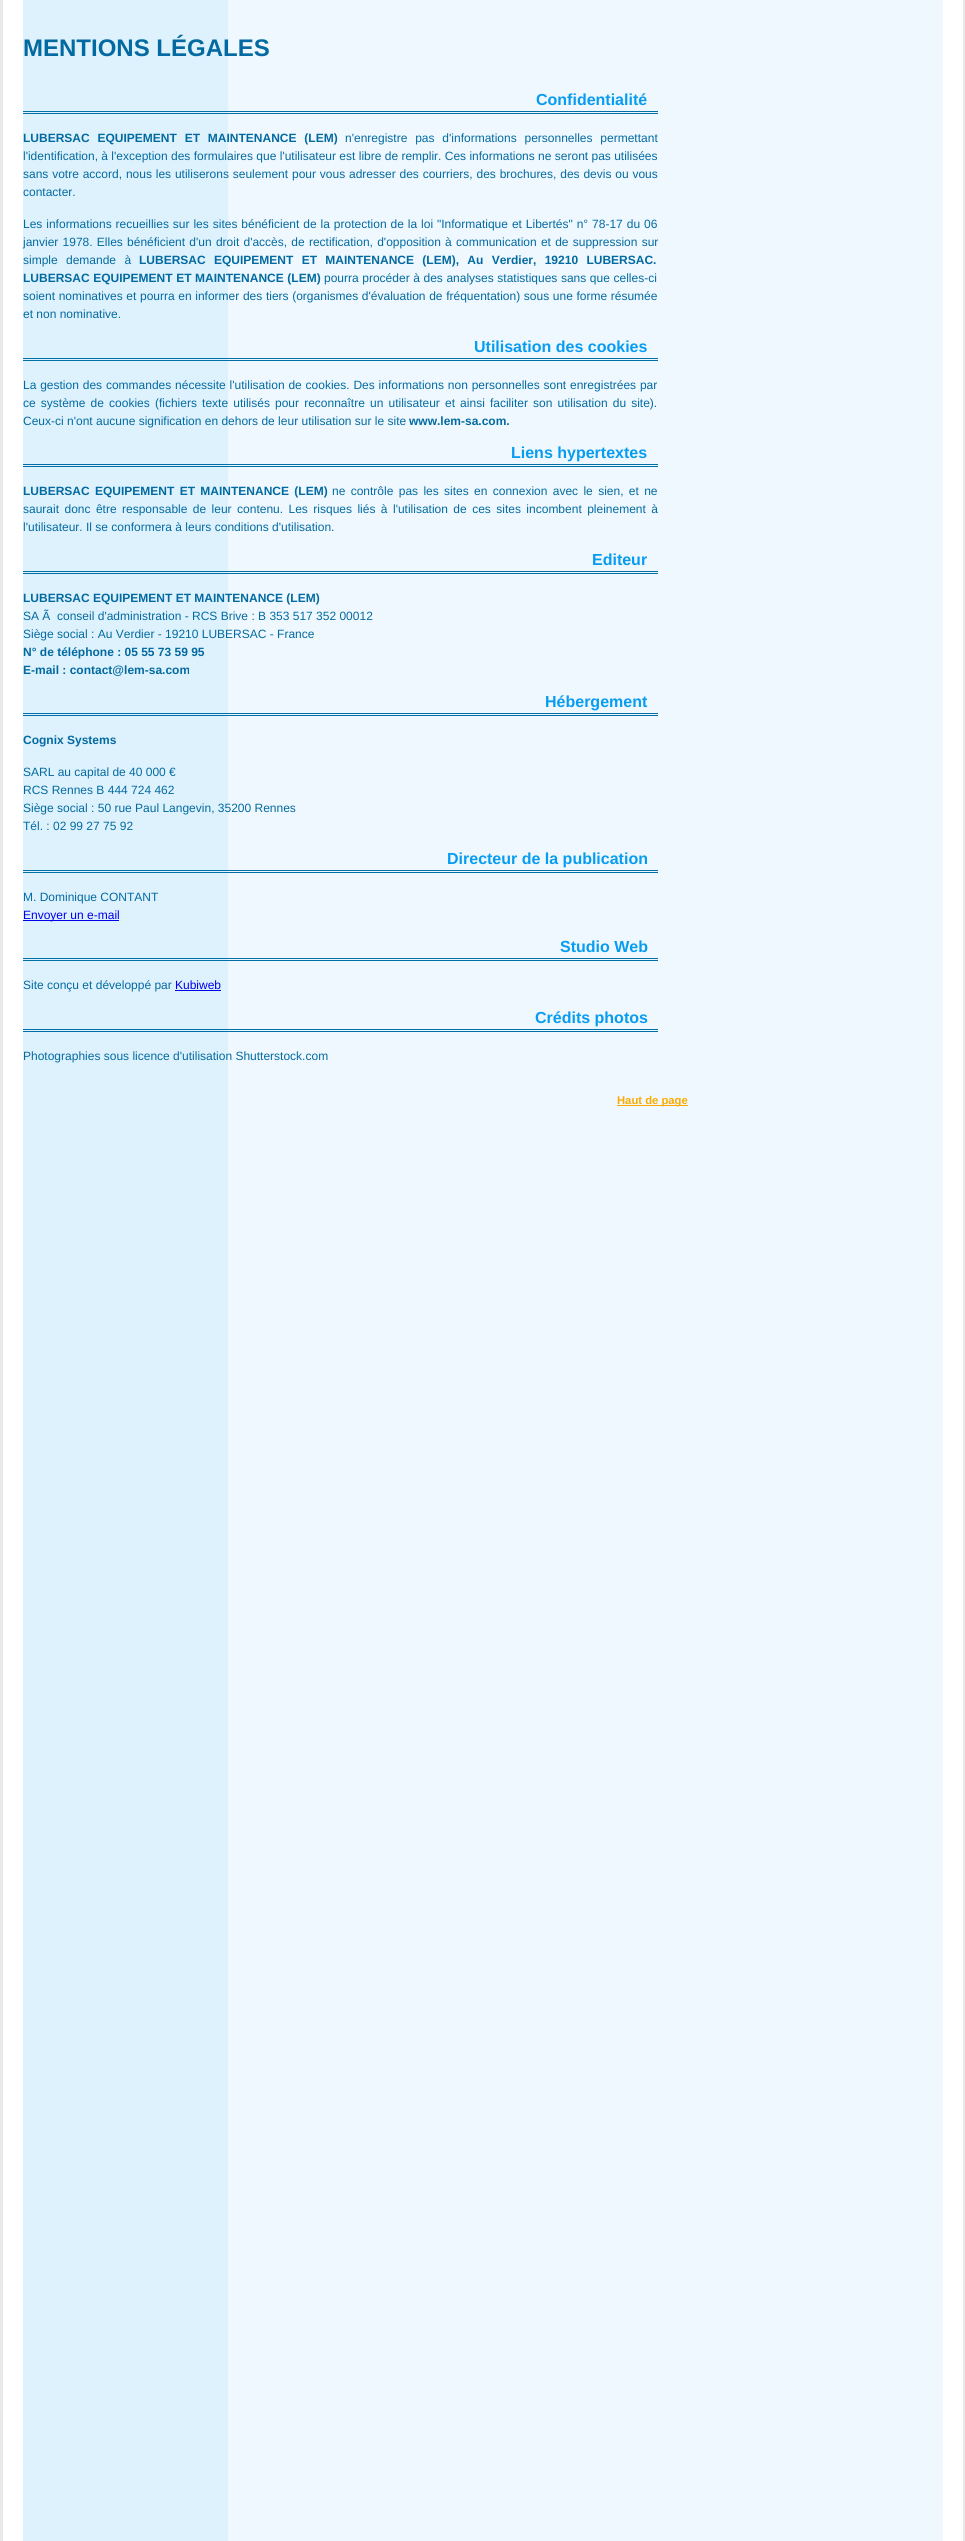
#include <cairo.h>
#include <math.h>
#include <stddef.h>

typedef struct { const char *family; double size; int italic, bold; unsigned color; } style_t;
static cairo_t *ctx;

static void ink(unsigned color) {
    cairo_set_source_rgb(ctx, (color >> 16) / 255.0, (color >> 8 & 255) / 255.0, (color & 255) / 255.0);
}

static void write(double x, double y, const char *s, const style_t *st) {
    cairo_select_font_face(ctx, st->family, st->italic ? CAIRO_FONT_SLANT_ITALIC : CAIRO_FONT_SLANT_NORMAL,
        st->bold ? CAIRO_FONT_WEIGHT_BOLD : CAIRO_FONT_WEIGHT_NORMAL);
    cairo_set_font_size(ctx, st->size);
    ink(st->color);
    cairo_move_to(ctx, x, y);
    cairo_show_text(ctx, s);
}

static void write_spaced(double x, double y, const char *s, double letter, double word) {
    cairo_move_to(ctx, x, y);
    while (*s) {
        char ch[5] = {0};
        int n = 0;
        do ch[n++] = *s++; while ((*s & 0xC0) == 0x80);
        cairo_show_text(ctx, ch);
        cairo_rel_move_to(ctx, letter + word * (*ch == ' '), 0);
    }
}

static void block(double x, double y, double w, double h, unsigned color) {
    ink(color);
    cairo_rectangle(ctx, x, y, w, h);
    cairo_fill(ctx);
}

static void paste(const char *path, double x, double y, double w, double h) {
    cairo_surface_t *image = cairo_image_surface_create_from_png(path);
    cairo_save(ctx);
    cairo_set_source_surface(ctx, image, x, y);
    cairo_rectangle(ctx, x, y, w, h);
    cairo_fill(ctx);
    cairo_restore(ctx);
    cairo_surface_destroy(image);
}

static const style_t s1 = {"Liberation Sans", 24, 0, 1, 0x036aa1};
static const style_t s2 = {"Liberation Sans", 16, 0, 1, 0x089cf0};
static const style_t s3 = {"Liberation Sans", 12, 0, 0, 0x036aa1};
static const style_t s4 = {"Liberation Sans", 12, 0, 1, 0x036aa1};
static const style_t s5 = {"Liberation Sans", 12, 0, 0, 0x0000ee};
static const style_t s6 = {"Liberation Sans", 11.25, 0, 1, 0xfcaa00};

int main(void) {
    cairo_surface_t *surface = cairo_image_surface_create(CAIRO_FORMAT_RGB24, 965, 2541);
    ctx = cairo_create(surface);
    cairo_font_options_t *options = cairo_font_options_create();
    cairo_font_options_set_hint_metrics(options, CAIRO_HINT_METRICS_OFF);
    cairo_font_options_set_hint_style(options, CAIRO_HINT_STYLE_NONE);
    cairo_set_font_options(ctx, options);
    cairo_set_miter_limit(ctx, 4);
    ink(0xe9e9e9);
    cairo_paint(ctx);
    paste("pic1.png", 3, 0, 960, 2541);
    write(23, 56, "MENTIONS LÉGALES", &s1);
    block(23, 111, 635, 1, 0x006fa5);
    block(23, 113, 635, 1, 0x006fa5);
    write(536, 105, "Confidentialité", &s2);
    cairo_set_font_size(ctx, 12);
    ink(0x036aa1);
    write_spaced(23, 142, "LUBERSAC EQUIPEMENT ET MAINTENANCE (LEM)", 0, 4.5);
    cairo_select_font_face(ctx, "Liberation Sans", CAIRO_FONT_SLANT_NORMAL, CAIRO_FONT_WEIGHT_NORMAL);
    write_spaced(345, 142, "n'enregistre pas d'informations personnelles permettant", 0, 4.5);
    write(23, 160, "l'identification, à l'exception des formulaires que l'utilisateur est libre de remplir. Ces informations ne seront pas utilisées", &s3);
    write_spaced(23, 178, "sans votre accord, nous les utiliserons seulement pour vous adresser des courriers, des brochures, des devis ou vous", 0, 0.5);
    write(23, 196, "contacter.", &s3);
    write_spaced(23, 228, "Les informations recueillies sur les sites bénéficient de la protection de la loi \"Informatique et Libertés\" n° 78-17 du 06", 0, 0.6);
    write_spaced(23, 246, "janvier 1978. Elles bénéficient d'un droit d'accès, de rectification, d'opposition à communication et de suppression sur", 0, 0.9);
    write_spaced(23, 264, "simple demande à", 0, 5);
    cairo_select_font_face(ctx, "Liberation Sans", CAIRO_FONT_SLANT_NORMAL, CAIRO_FONT_WEIGHT_BOLD);
    write_spaced(139, 264, "LUBERSAC EQUIPEMENT ET MAINTENANCE (LEM), Au Verdier, 19210 LUBERSAC.", 0, 5);
    write_spaced(23, 282, "LUBERSAC EQUIPEMENT ET MAINTENANCE (LEM)", 0, 0.25);
    cairo_select_font_face(ctx, "Liberation Sans", CAIRO_FONT_SLANT_NORMAL, CAIRO_FONT_WEIGHT_NORMAL);
    write_spaced(324, 282, "pourra procéder à des analyses statistiques sans que celles-ci", 0, 0.25);
    write_spaced(23, 300, "soient nominatives et pourra en informer des tiers (organismes d'évaluation de fréquentation) sous une forme résumée", 0, 0.3);
    write(23, 318, "et non nominative.", &s3);
    block(23, 358, 635, 1, 0x006fa5);
    block(23, 360, 635, 1, 0x006fa5);
    write(474, 352, "Utilisation des cookies", &s2);
    cairo_select_font_face(ctx, "Liberation Sans", CAIRO_FONT_SLANT_NORMAL, CAIRO_FONT_WEIGHT_NORMAL);
    cairo_set_font_size(ctx, 12);
    ink(0x036aa1);
    write_spaced(23, 389, "La gestion des commandes nécessite l'utilisation de cookies. Des informations non personnelles sont enregistrées par", 0, 0.5);
    write_spaced(23, 407, "ce système de cookies (fichiers texte utilisés pour reconnaître un utilisateur et ainsi faciliter son utilisation du site).", 0, 1.8);
    write(23, 425, "Ceux-ci n'ont aucune signification en dehors de leur utilisation sur le site", &s3);
    write(409, 425, "www.lem-sa.com.", &s4);
    block(23, 464, 635, 1, 0x006fa5);
    block(23, 466, 635, 1, 0x006fa5);
    write(511, 458, "Liens hypertextes", &s2);
    cairo_set_font_size(ctx, 12);
    ink(0x036aa1);
    write_spaced(23, 495, "LUBERSAC EQUIPEMENT ET MAINTENANCE (LEM)", 0, 2);
    cairo_select_font_face(ctx, "Liberation Sans", CAIRO_FONT_SLANT_NORMAL, CAIRO_FONT_WEIGHT_NORMAL);
    write_spaced(332, 495, "ne contrôle pas les sites en connexion avec le sien, et ne", 0, 2);
    write_spaced(23, 513, "saurait donc être responsable de leur contenu. Les risques liés à l'utilisation de ces sites incombent pleinement à", 0, 2.1);
    write(23, 531, "l'utilisateur. Il se conformera à leurs conditions d'utilisation.", &s3);
    block(23, 571, 635, 1, 0x006fa5);
    block(23, 573, 635, 1, 0x006fa5);
    write(592, 565, "Editeur", &s2);
    write(23, 602, "LUBERSAC EQUIPEMENT ET MAINTENANCE (LEM)", &s4);
    write(23, 620, "SA Ã  conseil d'administration - RCS Brive : B 353 517 352 00012", &s3);
    write(23, 638, "Siège social : Au Verdier - 19210 LUBERSAC - France", &s3);
    write(23, 656, "N° de téléphone : 05 55 73 59 95", &s4);
    write(23, 674, "E-mail : contact@lem-sa.com", &s4);
    block(23, 713, 635, 1, 0x006fa5);
    block(23, 715, 635, 1, 0x006fa5);
    write(545, 707, "Hébergement", &s2);
    write(23, 744, "Cognix Systems", &s4);
    write(23, 776, "SARL au capital de 40 000 €", &s3);
    write(23, 794, "RCS Rennes B 444 724 462", &s3);
    write(23, 812, "Siège social : 50 rue Paul Langevin, 35200 Rennes", &s3);
    write(23, 830, "Tél. : 02 99 27 75 92", &s3);
    block(23, 870, 635, 1, 0x006fa5);
    block(23, 872, 635, 1, 0x006fa5);
    write(447, 864, "Directeur de la publication", &s2);
    write(23, 901, "M. Dominique CONTANT", &s3);
    block(23, 920, 96, 1, 0x0000ee);
    write(23, 919, "Envoyer un e-mail", &s5);
    block(23, 958, 635, 1, 0x006fa5);
    block(23, 960, 635, 1, 0x006fa5);
    write(560, 952, "Studio Web", &s2);
    write(23, 989, "Site conçu et développé par", &s3);
    write(175, 989, "Kubiweb", &s5);
    block(175, 990, 46, 1, 0x0000ee);
    block(23, 1029, 635, 1, 0x006fa5);
    block(23, 1031, 635, 1, 0x006fa5);
    write(535, 1023, "Crédits photos", &s2);
    write(23, 1060, "Photographies sous licence d'utilisation Shutterstock.com", &s3);
    block(617, 1105, 71, 1, 0xfcaa00);
    write(617, 1104, "Haut de page", &s6);
    cairo_surface_write_to_png(surface, "screenshot.png");
    cairo_font_options_destroy(options);
    cairo_destroy(ctx);
    cairo_surface_destroy(surface);
    return 0;
}
